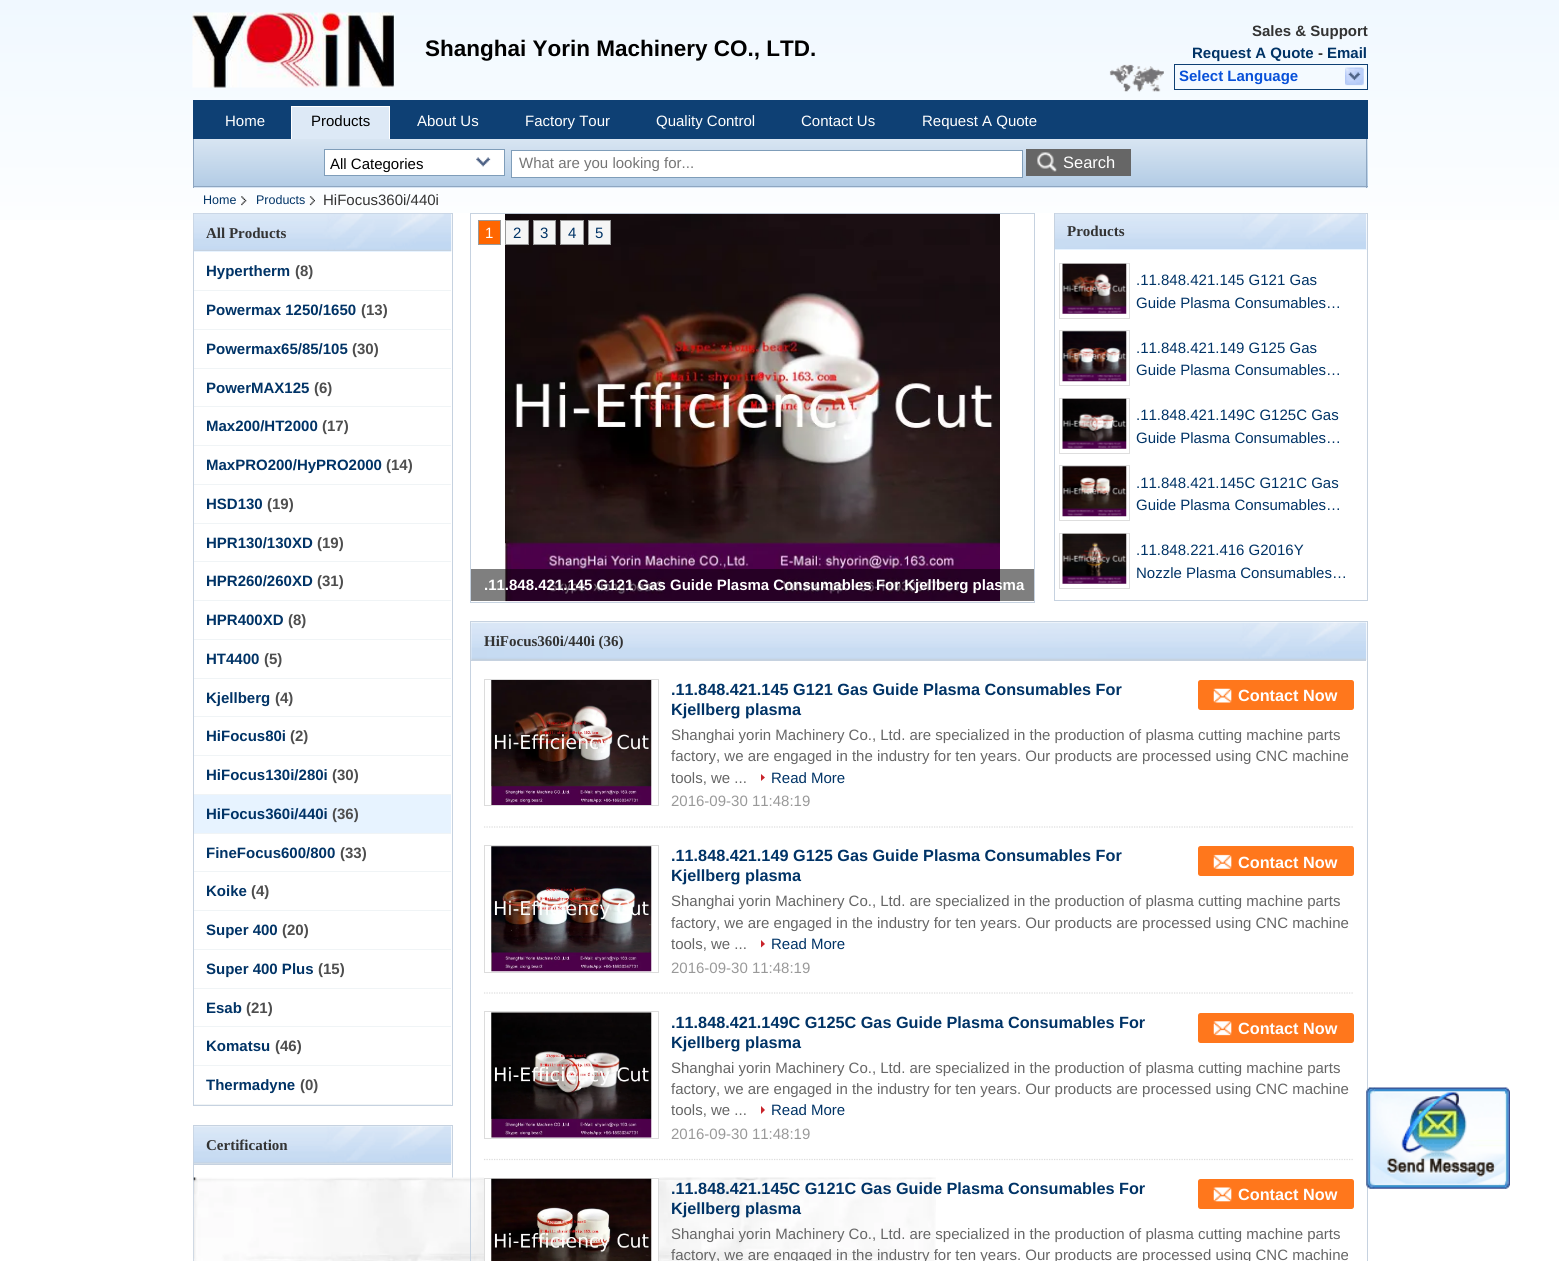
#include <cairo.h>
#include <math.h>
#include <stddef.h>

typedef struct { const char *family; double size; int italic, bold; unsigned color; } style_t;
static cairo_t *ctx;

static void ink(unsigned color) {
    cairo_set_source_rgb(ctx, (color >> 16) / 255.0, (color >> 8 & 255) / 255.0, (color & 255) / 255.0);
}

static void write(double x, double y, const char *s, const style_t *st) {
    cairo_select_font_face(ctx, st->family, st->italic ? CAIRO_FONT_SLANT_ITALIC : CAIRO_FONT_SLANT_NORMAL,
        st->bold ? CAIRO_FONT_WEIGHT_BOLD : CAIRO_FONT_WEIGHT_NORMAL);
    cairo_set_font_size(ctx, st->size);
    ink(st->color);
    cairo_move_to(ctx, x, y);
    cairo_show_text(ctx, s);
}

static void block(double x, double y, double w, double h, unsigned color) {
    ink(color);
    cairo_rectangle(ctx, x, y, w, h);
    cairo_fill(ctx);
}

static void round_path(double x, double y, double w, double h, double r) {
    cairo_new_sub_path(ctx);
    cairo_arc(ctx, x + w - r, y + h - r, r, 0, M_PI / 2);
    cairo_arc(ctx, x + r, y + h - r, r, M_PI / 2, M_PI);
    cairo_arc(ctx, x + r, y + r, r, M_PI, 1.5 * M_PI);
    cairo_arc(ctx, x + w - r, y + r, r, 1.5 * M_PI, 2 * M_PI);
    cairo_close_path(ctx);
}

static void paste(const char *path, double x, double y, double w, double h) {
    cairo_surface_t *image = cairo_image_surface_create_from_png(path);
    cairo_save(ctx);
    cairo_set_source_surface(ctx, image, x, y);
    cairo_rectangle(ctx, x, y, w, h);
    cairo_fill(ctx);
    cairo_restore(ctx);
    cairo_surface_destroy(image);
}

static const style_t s1 = {"Liberation Sans", 22.5, 0, 1, 0x000000};
static const style_t s2 = {"Liberation Sans", 15, 0, 1, 0x333333};
static const style_t s3 = {"Liberation Sans", 15, 0, 1, 0x003366};
static const style_t s4 = {"Liberation Sans", 15, 0, 1, 0x0750d9};
static const style_t s5 = {"Liberation Sans", 15, 0, 0, 0xffffff};
static const style_t s6 = {"Liberation Sans", 15, 0, 0, 0x000000};
static const style_t s7 = {"Liberation Sans", 15, 0, 0, 0x757575};
static const style_t s8 = {"Liberation Sans", 16.5, 0, 0, 0xffffff};
static const style_t s9 = {"Liberation Sans", 12.5, 0, 0, 0x003366};
static const style_t s10 = {"Liberation Sans", 15, 0, 0, 0x333333};
static const style_t s11 = {"Liberation Serif", 15, 0, 1, 0x333333};
static const style_t s12 = {"Liberation Sans", 15, 0, 1, 0x4e4e4e};
static const style_t s13 = {"Liberation Sans", 15, 0, 0, 0x003366};
static const style_t s14 = {"Liberation Sans", 15, 0, 1, 0xffffff};
static const style_t s15 = {"Liberation Sans", 16.25, 0, 1, 0x003366};
static const style_t s16 = {"Liberation Sans", 16.25, 0, 1, 0xffffff};
static const style_t s17 = {"Liberation Sans", 15, 0, 0, 0x666666};
static const style_t s18 = {"Liberation Sans", 15, 0, 0, 0x999999};

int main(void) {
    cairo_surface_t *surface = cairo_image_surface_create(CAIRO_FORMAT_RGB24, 1559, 1261);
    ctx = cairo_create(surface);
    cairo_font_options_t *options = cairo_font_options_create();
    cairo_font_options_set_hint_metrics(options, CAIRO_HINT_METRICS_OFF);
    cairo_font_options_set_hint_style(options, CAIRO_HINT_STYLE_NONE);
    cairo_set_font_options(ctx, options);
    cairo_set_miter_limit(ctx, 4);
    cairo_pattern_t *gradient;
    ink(0xffffff);
    cairo_paint(ctx);
    gradient = cairo_pattern_create_linear(780, 0, 780, 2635);
    cairo_pattern_add_color_stop_rgba(gradient, 0, 0.941, 0.973, 1, 1);
    cairo_pattern_add_color_stop_rgba(gradient, 0.1, 1, 1, 1, 1);
    cairo_pattern_add_color_stop_rgba(gradient, 1, 1, 1, 1, 1);
    cairo_set_source(ctx, gradient);
    cairo_pattern_destroy(gradient);
    cairo_rectangle(ctx, 0, 0, 1559, 220);
    cairo_fill(ctx);
    paste("pic1.png", 192, 12, 203, 76);
    write(425, 56, "Shanghai Yorin Machinery CO., LTD.", &s1);
    write(1252, 36, "Sales & Support", &s2);
    write(1192, 58, "Request A Quote", &s3);
    write(1318, 58, "-", &s2);
    write(1327, 58, "Email", &s3);
    paste("pic2.png", 1109, 64, 55, 28);
    cairo_rectangle(ctx, 1174.5, 64.5, 193, 25);
    ink(0x0e4074);
    cairo_set_line_width(ctx, 1);
    cairo_stroke(ctx);
    write(1179, 81, "Select Language", &s4);
    paste("pic3.png", 1345, 67, 19, 19);
    gradient = cairo_pattern_create_linear(780, 139, 780, 186);
    cairo_pattern_add_color_stop_rgba(gradient, 0, 0.847, 0.898, 0.949, 1);
    cairo_pattern_add_color_stop_rgba(gradient, 1, 0.702, 0.8, 0.898, 1);
    cairo_set_source(ctx, gradient);
    cairo_pattern_destroy(gradient);
    cairo_rectangle(ctx, 194, 139, 1174, 47);
    cairo_fill(ctx);
    gradient = cairo_pattern_create_linear(780, 186, 780, 234);
    cairo_pattern_add_color_stop_rgba(gradient, 0, 0.847, 0.898, 0.949, 1);
    cairo_pattern_add_color_stop_rgba(gradient, 1, 0.702, 0.8, 0.898, 1);
    cairo_set_source(ctx, gradient);
    cairo_pattern_destroy(gradient);
    cairo_rectangle(ctx, 193, 187, 1175, 1);
    cairo_fill(ctx);
    block(1366, 138, 1, 50, 0x8ea6c1);
    block(193, 186, 1175, 1, 0x8ea6c1);
    block(193, 138, 1, 50, 0x8ea6c1);
    block(193, 100, 1175, 39, 0x0e4074);
    write(225, 126, "Home", &s5);
    block(292, 107, 97, 32, 0xdde9f6);
    cairo_save(ctx);
    cairo_rectangle(ctx, 193, 100, 1175, 39);
    cairo_clip(ctx);
    cairo_rectangle(ctx, 291.5, 106.5, 98, 49);
    ink(0xffffff);
    cairo_stroke(ctx);
    cairo_restore(ctx);
    write(311, 126, "Products", &s6);
    write(417, 126, "About Us", &s5);
    write(525, 126, "Factory Tour", &s5);
    write(656, 126, "Quality Control", &s5);
    write(801, 126, "Contact Us", &s5);
    write(922, 126, "Request A Quote", &s5);
    cairo_rectangle(ctx, 324.5, 149.5, 180, 26);
    ink(0x7f9db9);
    cairo_stroke(ctx);
    block(325, 150, 179, 25, 0xffffff);
    paste("pic4.png", 476, 157, 15, 10);
    write(330, 169, "All Categories", &s6);
    ink(0xffffff);
    cairo_rectangle(ctx, 511.5, 150.5, 511, 27);
    cairo_fill_preserve(ctx);
    ink(0x7f9db9);
    cairo_stroke(ctx);
    write(519, 168, "What are you looking for...", &s7);
    block(1026, 149, 105, 27, 0x666666);
    paste("pic5.png", 1037, 152, 20, 20);
    write(1063, 168, "Search", &s8);
    paste("pic6.png", 241, 196, 6, 10);
    write(203, 204, "Home", &s9);
    paste("pic7.png", 309, 196, 6, 10);
    write(256, 204, "Products", &s9);
    write(323, 205, "HiFocus360i/440i", &s10);
    block(193, 213, 1175, 7, 0xffffff);
    cairo_rectangle(ctx, 193.5, 213.5, 259, 892);
    ink(0xc6d2e0);
    cairo_stroke(ctx);
    paste("pic8.png", 193, 213, 259, 39);
    block(194, 251, 257, 1, 0xe7f3ff);
    write(206, 238, "All Products", &s11);
    block(194, 290, 257, 1, 0xf0f4f6);
    write(206, 276, "Hypertherm", &s3);
    write(295, 276, "(8)", &s12);
    block(194, 329, 257, 1, 0xf0f4f6);
    write(206, 315, "Powermax 1250/1650", &s3);
    write(361, 315, "(13)", &s12);
    block(194, 368, 257, 1, 0xf0f4f6);
    write(206, 354, "Powermax65/85/105", &s3);
    write(352, 354, "(30)", &s12);
    block(194, 406, 257, 1, 0xf0f4f6);
    write(206, 393, "PowerMAX125", &s3);
    write(314, 393, "(6)", &s12);
    block(194, 445, 257, 1, 0xf0f4f6);
    write(206, 431, "Max200/HT2000", &s3);
    write(322, 431, "(17)", &s12);
    block(194, 484, 257, 1, 0xf0f4f6);
    write(206, 470, "MaxPRO200/HyPRO2000", &s3);
    write(386, 470, "(14)", &s12);
    block(194, 523, 257, 1, 0xf0f4f6);
    write(206, 509, "HSD130", &s3);
    write(267, 509, "(19)", &s12);
    block(194, 561, 257, 1, 0xf0f4f6);
    write(206, 548, "HPR130/130XD", &s3);
    write(317, 548, "(19)", &s12);
    block(194, 600, 257, 1, 0xf0f4f6);
    write(206, 586, "HPR260/260XD", &s3);
    write(317, 586, "(31)", &s12);
    block(194, 639, 257, 1, 0xf0f4f6);
    write(206, 625, "HPR400XD", &s3);
    write(288, 625, "(8)", &s12);
    block(194, 678, 257, 1, 0xf0f4f6);
    write(206, 664, "HT4400", &s3);
    write(264, 664, "(5)", &s12);
    block(194, 716, 257, 1, 0xf0f4f6);
    write(206, 703, "Kjellberg", &s3);
    write(275, 703, "(4)", &s12);
    block(194, 755, 257, 1, 0xf0f4f6);
    write(206, 741, "HiFocus80i", &s3);
    write(290, 741, "(2)", &s12);
    block(194, 794, 257, 1, 0xf0f4f6);
    write(206, 780, "HiFocus130i/280i", &s3);
    write(332, 780, "(30)", &s12);
    block(194, 795, 257, 38, 0xe7f3ff);
    block(194, 833, 257, 1, 0xf0f4f6);
    write(206, 819, "HiFocus360i/440i", &s3);
    write(332, 819, "(36)", &s12);
    block(194, 871, 257, 1, 0xf0f4f6);
    write(206, 858, "FineFocus600/800", &s3);
    write(340, 858, "(33)", &s12);
    block(194, 910, 257, 1, 0xf0f4f6);
    write(206, 896, "Koike", &s3);
    write(251, 896, "(4)", &s12);
    block(194, 949, 257, 1, 0xf0f4f6);
    write(206, 935, "Super 400", &s3);
    write(282, 935, "(20)", &s12);
    block(194, 988, 257, 1, 0xf0f4f6);
    write(206, 974, "Super 400 Plus", &s3);
    write(318, 974, "(15)", &s12);
    block(194, 1026, 257, 1, 0xf0f4f6);
    write(206, 1013, "Esab", &s3);
    write(246, 1013, "(21)", &s12);
    block(194, 1065, 257, 1, 0xf0f4f6);
    write(206, 1051, "Komatsu", &s3);
    write(275, 1051, "(46)", &s12);
    block(194, 1104, 257, 1, 0xf0f4f6);
    write(206, 1090, "Thermadyne", &s3);
    write(300, 1090, "(0)", &s12);
    cairo_rectangle(ctx, 193.5, 1125.5, 259, 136);
    ink(0xc6d2e0);
    cairo_stroke(ctx);
    paste("pic9.png", 193, 1126, 259, 38);
    block(194, 1164, 257, 1, 0xc6d2e0);
    write(206, 1150, "Certification", &s11);
    paste("pic10.png", 193, 1177, 743, 84);
    cairo_rectangle(ctx, 470.5, 213.5, 564, 389);
    ink(0xc6d2e0);
    cairo_stroke(ctx);
    ink(0xff6600);
    cairo_rectangle(ctx, 478.5, 220.5, 22, 24);
    cairo_fill_preserve(ctx);
    ink(0x999999);
    cairo_stroke(ctx);
    write(485, 238, "1", &s5);
    paste("pic11.png", 505, 213, 495, 389);
    ink(0xf5f5f5);
    cairo_rectangle(ctx, 505.5, 220.5, 23, 24);
    cairo_fill_preserve(ctx);
    ink(0x999999);
    cairo_stroke(ctx);
    write(513, 238, "2", &s13);
    ink(0xf5f5f5);
    cairo_rectangle(ctx, 533.5, 220.5, 22, 24);
    cairo_fill_preserve(ctx);
    ink(0x999999);
    cairo_stroke(ctx);
    write(540, 238, "3", &s13);
    ink(0xf5f5f5);
    cairo_rectangle(ctx, 560.5, 220.5, 23, 24);
    cairo_fill_preserve(ctx);
    ink(0x999999);
    cairo_stroke(ctx);
    write(568, 238, "4", &s13);
    ink(0xf5f5f5);
    cairo_rectangle(ctx, 588.5, 220.5, 22, 24);
    cairo_fill_preserve(ctx);
    ink(0x999999);
    cairo_stroke(ctx);
    write(595, 238, "5", &s13);
    cairo_set_source_rgba(ctx, 0, 0, 0, 0.5);
    cairo_rectangle(ctx, 471, 569, 563, 32);
    cairo_fill(ctx);
    write(484, 590, ".11.848.421.145 G121 Gas Guide Plasma Consumables For Kjellberg plasma", &s14);
    cairo_rectangle(ctx, 1054.5, 213.5, 313, 387);
    ink(0xc6d2e0);
    cairo_stroke(ctx);
    paste("pic12.png", 1055, 213, 312, 37);
    block(1055, 249, 311, 1, 0xe7f3ff);
    write(1067, 236, "Products", &s11);
    cairo_rectangle(ctx, 1059.5, 263.5, 70, 55);
    ink(0xdedede);
    cairo_stroke(ctx);
    paste("pic13.png", 1062, 263, 65, 51);
    write(1136, 285, ".11.848.421.145 G121 Gas", &s13);
    write(1136, 308, "Guide Plasma Consumables…", &s13);
    cairo_rectangle(ctx, 1059.5, 330.5, 70, 55);
    ink(0xdedede);
    cairo_stroke(ctx);
    paste("pic14.png", 1062, 331, 65, 51);
    write(1136, 353, ".11.848.421.149 G125 Gas", &s13);
    write(1136, 375, "Guide Plasma Consumables…", &s13);
    cairo_rectangle(ctx, 1059.5, 398.5, 70, 55);
    ink(0xdedede);
    cairo_stroke(ctx);
    paste("pic15.png", 1062, 398, 65, 51);
    write(1136, 420, ".11.848.421.149C G125C Gas", &s13);
    write(1136, 443, "Guide Plasma Consumables…", &s13);
    cairo_rectangle(ctx, 1059.5, 465.5, 70, 55);
    ink(0xdedede);
    cairo_stroke(ctx);
    paste("pic16.png", 1062, 466, 65, 51);
    write(1136, 488, ".11.848.421.145C G121C Gas", &s13);
    write(1136, 510, "Guide Plasma Consumables…", &s13);
    cairo_rectangle(ctx, 1059.5, 533.5, 70, 55);
    ink(0xdedede);
    cairo_stroke(ctx);
    paste("pic17.png", 1062, 533, 65, 51);
    write(1136, 555, ".11.848.221.416 G2016Y", &s13);
    write(1136, 578, "Nozzle Plasma Consumables…", &s13);
    cairo_rectangle(ctx, 470.5, 621.5, 897, 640);
    ink(0xc6d2e0);
    cairo_stroke(ctx);
    paste("pic18.png", 471, 622, 896, 38);
    block(471, 660, 895, 1, 0xc6d2e0);
    write(484, 646, "HiFocus360i/440i (36)", &s11);
    cairo_new_path(ctx);
    cairo_move_to(ctx, 484, 827);
    cairo_line_to(ctx, 1354, 827);
    ink(0xdcdcdc);
    cairo_set_line_width(ctx, 1.2);
    cairo_set_dash(ctx, (double[]){1.25, 1.25}, 2, 0);
    cairo_stroke(ctx);
    cairo_rectangle(ctx, 484.5, 679.5, 174, 126);
    cairo_set_line_width(ctx, 1);
    cairo_set_dash(ctx, NULL, 0, 0);
    cairo_stroke(ctx);
    paste("pic19.png", 491, 680, 161, 125);
    write(671, 695, ".11.848.421.145 G121 Gas Guide Plasma Consumables For", &s15);
    ink(0xff771c);
    round_path(1198, 680, 156, 30, 2.5);
    cairo_fill(ctx);
    paste("pic20.png", 1213, 688, 19, 15);
    write(1238, 701, "Contact Now", &s16);
    write(671, 715, "Kjellberg plasma", &s15);
    write(671, 740, "Shanghai yorin Machinery Co., Ltd. are specialized in the production of plasma cutting machine parts", &s17);
    write(671, 761, "factory, we are engaged in the industry for ten years. Our products are processed using CNC machine", &s17);
    write(671, 783, "tools, we ...", &s17);
    ink(0xc9242b);
    cairo_new_path(ctx);
    cairo_move_to(ctx, 761, 781);
    cairo_line_to(ctx, 761, 774);
    cairo_line_to(ctx, 765, 777.5);
    cairo_close_path(ctx);
    cairo_fill(ctx);
    write(771, 783, "Read More", &s13);
    write(671, 806, "2016-09-30 11:48:19", &s18);
    cairo_new_path(ctx);
    cairo_move_to(ctx, 484, 993);
    cairo_line_to(ctx, 1354, 993);
    ink(0xdcdcdc);
    cairo_set_line_width(ctx, 1.2);
    cairo_set_dash(ctx, (double[]){1.25, 1.25}, 2, 0);
    cairo_stroke(ctx);
    cairo_rectangle(ctx, 484.5, 845.5, 174, 127);
    cairo_set_line_width(ctx, 1);
    cairo_set_dash(ctx, NULL, 0, 0);
    cairo_stroke(ctx);
    paste("pic21.png", 491, 846, 161, 126);
    write(671, 861, ".11.848.421.149 G125 Gas Guide Plasma Consumables For", &s15);
    ink(0xff771c);
    round_path(1198, 846, 156, 30, 2.5);
    cairo_fill(ctx);
    paste("pic22.png", 1213, 854, 19, 15);
    write(1238, 868, "Contact Now", &s16);
    write(671, 881, "Kjellberg plasma", &s15);
    write(671, 906, "Shanghai yorin Machinery Co., Ltd. are specialized in the production of plasma cutting machine parts", &s17);
    write(671, 928, "factory, we are engaged in the industry for ten years. Our products are processed using CNC machine", &s17);
    write(671, 949, "tools, we ...", &s17);
    ink(0xc9242b);
    cairo_new_path(ctx);
    cairo_move_to(ctx, 761, 947.5);
    cairo_line_to(ctx, 761, 940);
    cairo_line_to(ctx, 765, 944);
    cairo_close_path(ctx);
    cairo_fill(ctx);
    write(771, 949, "Read More", &s13);
    write(671, 973, "2016-09-30 11:48:19", &s18);
    cairo_new_path(ctx);
    cairo_move_to(ctx, 484, 1159.5);
    cairo_line_to(ctx, 1354, 1159.5);
    ink(0xdcdcdc);
    cairo_set_line_width(ctx, 1.2);
    cairo_set_dash(ctx, (double[]){1.25, 1.25}, 2, 0);
    cairo_stroke(ctx);
    cairo_rectangle(ctx, 484.5, 1011.5, 174, 127);
    cairo_set_line_width(ctx, 1);
    cairo_set_dash(ctx, NULL, 0, 0);
    cairo_stroke(ctx);
    paste("pic23.png", 491, 1012, 161, 126);
    write(671, 1028, ".11.848.421.149C G125C Gas Guide Plasma Consumables For", &s15);
    ink(0xff771c);
    round_path(1198, 1013, 156, 30, 2.5);
    cairo_fill(ctx);
    paste("pic24.png", 1213, 1021, 19, 15);
    write(1238, 1034, "Contact Now", &s16);
    write(671, 1048, "Kjellberg plasma", &s15);
    write(671, 1073, "Shanghai yorin Machinery Co., Ltd. are specialized in the production of plasma cutting machine parts", &s17);
    write(671, 1094, "factory, we are engaged in the industry for ten years. Our products are processed using CNC machine", &s17);
    write(671, 1115, "tools, we ...", &s17);
    ink(0xc9242b);
    cairo_new_path(ctx);
    cairo_move_to(ctx, 761, 1114);
    cairo_line_to(ctx, 761, 1106);
    cairo_line_to(ctx, 765, 1110);
    cairo_close_path(ctx);
    cairo_fill(ctx);
    write(771, 1115, "Read More", &s13);
    write(671, 1139, "2016-09-30 11:48:19", &s18);
    block(484, 1177, 175, 84, 0xffffff);
    cairo_rectangle(ctx, 484.5, 1178.5, 174, 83);
    ink(0xdcdcdc);
    cairo_stroke(ctx);
    paste("pic25.png", 491, 1178, 161, 83);
    write(671, 1194, ".11.848.421.145C G121C Gas Guide Plasma Consumables For", &s15);
    ink(0xff771c);
    round_path(1198, 1179, 156, 30, 2.5);
    cairo_fill(ctx);
    paste("pic26.png", 1213, 1187, 19, 15);
    write(1238, 1200, "Contact Now", &s16);
    write(671, 1214, "Kjellberg plasma", &s15);
    write(671, 1239, "Shanghai yorin Machinery Co., Ltd. are specialized in the production of plasma cutting machine parts", &s17);
    write(671, 1260, "factory, we are engaged in the industry for ten years. Our products are processed using CNC machine", &s17);
    paste("pic27.png", 1366, 1087, 144, 102);
    cairo_surface_write_to_png(surface, "screenshot.png");
    cairo_font_options_destroy(options);
    cairo_destroy(ctx);
    cairo_surface_destroy(surface);
    return 0;
}
